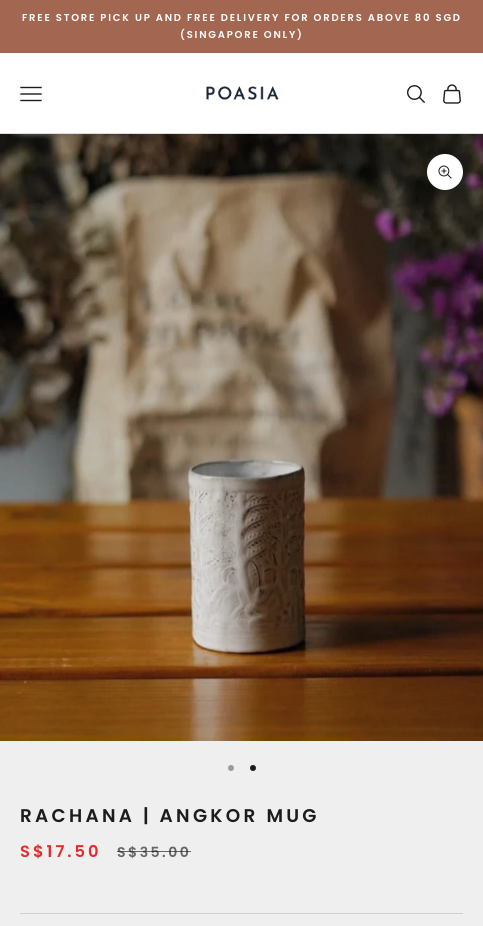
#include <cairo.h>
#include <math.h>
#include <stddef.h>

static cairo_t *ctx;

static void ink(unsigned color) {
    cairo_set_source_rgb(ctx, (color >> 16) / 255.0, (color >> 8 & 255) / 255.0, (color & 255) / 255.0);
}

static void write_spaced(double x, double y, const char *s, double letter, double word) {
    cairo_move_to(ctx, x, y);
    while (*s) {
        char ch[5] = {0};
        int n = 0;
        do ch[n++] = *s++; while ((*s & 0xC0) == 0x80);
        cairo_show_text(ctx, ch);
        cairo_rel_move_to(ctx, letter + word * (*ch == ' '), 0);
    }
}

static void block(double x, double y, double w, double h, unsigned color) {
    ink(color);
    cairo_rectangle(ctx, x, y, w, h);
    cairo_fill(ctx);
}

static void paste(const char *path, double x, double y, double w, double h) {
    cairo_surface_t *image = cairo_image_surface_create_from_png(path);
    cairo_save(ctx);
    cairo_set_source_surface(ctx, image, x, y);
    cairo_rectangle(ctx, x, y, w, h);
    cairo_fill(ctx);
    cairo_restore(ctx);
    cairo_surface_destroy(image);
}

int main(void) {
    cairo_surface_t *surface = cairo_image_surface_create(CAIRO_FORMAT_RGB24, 483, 926);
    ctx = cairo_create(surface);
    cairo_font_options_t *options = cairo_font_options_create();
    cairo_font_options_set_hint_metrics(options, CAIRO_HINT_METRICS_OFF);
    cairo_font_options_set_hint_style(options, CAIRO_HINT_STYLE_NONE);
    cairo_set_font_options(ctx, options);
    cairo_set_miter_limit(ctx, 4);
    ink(0xefefef);
    cairo_paint(ctx);
    block(0, 0, 483, 53, 0xa36751);
    cairo_select_font_face(ctx, "Poppins SemiBold", CAIRO_FONT_SLANT_NORMAL, CAIRO_FONT_WEIGHT_NORMAL);
    cairo_set_font_size(ctx, 10);
    ink(0xffffff);
    write_spaced(22, 21, "FREE STORE PICK UP AND FREE DELIVERY FOR ORDERS ABOVE 80 SGD", 1.8, 0);
    write_spaced(180, 38, "(SINGAPORE ONLY)", 1.8, 0);
    block(0, 53, 483, 80, 0xffffff);
    block(0, 133, 483, 1, 0xdddddd);
    cairo_new_path(ctx);
    cairo_move_to(ctx, 21, 100.5);
    cairo_line_to(ctx, 41, 100.5);
    cairo_move_to(ctx, 21, 94);
    cairo_line_to(ctx, 41, 94);
    cairo_move_to(ctx, 21, 87.5);
    cairo_line_to(ctx, 41, 87.5);
    ink(0x1c1c1c);
    cairo_set_line_width(ctx, 1.4);
    cairo_set_line_cap(ctx, CAIRO_LINE_CAP_SQUARE);
    cairo_stroke(ctx);
    paste("pic1.png", 206, 86, 73, 14);
    paste("pic2.png", 407, 85, 18, 18);
    paste("pic3.png", 443, 84, 18, 20);
    paste("pic4.png", 0, 134, 483, 607);
    ink(0xffffff);
    cairo_arc(ctx, 445, 172, 18, 0, 2 * M_PI);
    cairo_fill(ctx);
    paste("pic5.png", 438, 165, 14, 14);
    ink(0x9b9b9b);
    cairo_arc(ctx, 231, 768, 3, 0, 2 * M_PI);
    cairo_fill(ctx);
    ink(0x1c1c1c);
    cairo_arc(ctx, 253, 768, 3, 0, 2 * M_PI);
    cairo_fill(ctx);
    cairo_set_font_size(ctx, 18.4);
    write_spaced(20, 822, "RACHANA | ANGKOR MUG", 3.3, 0);
    cairo_set_font_size(ctx, 16.25);
    ink(0xe32c2b);
    write_spaced(20, 857, "S$17.50", 3, 0);
    cairo_set_font_size(ctx, 14);
    ink(0x666666);
    write_spaced(117, 857, "S$35.00", 2.5, 0);
    cairo_set_source_rgba(ctx, 0.11, 0.11, 0.11, 0.65);
    cairo_rectangle(ctx, 117, 851, 74, 1);
    cairo_fill(ctx);
    block(20, 913, 443, 1, 0xcfcfcf);
    cairo_surface_write_to_png(surface, "screenshot.png");
    cairo_font_options_destroy(options);
    cairo_destroy(ctx);
    cairo_surface_destroy(surface);
    return 0;
}
